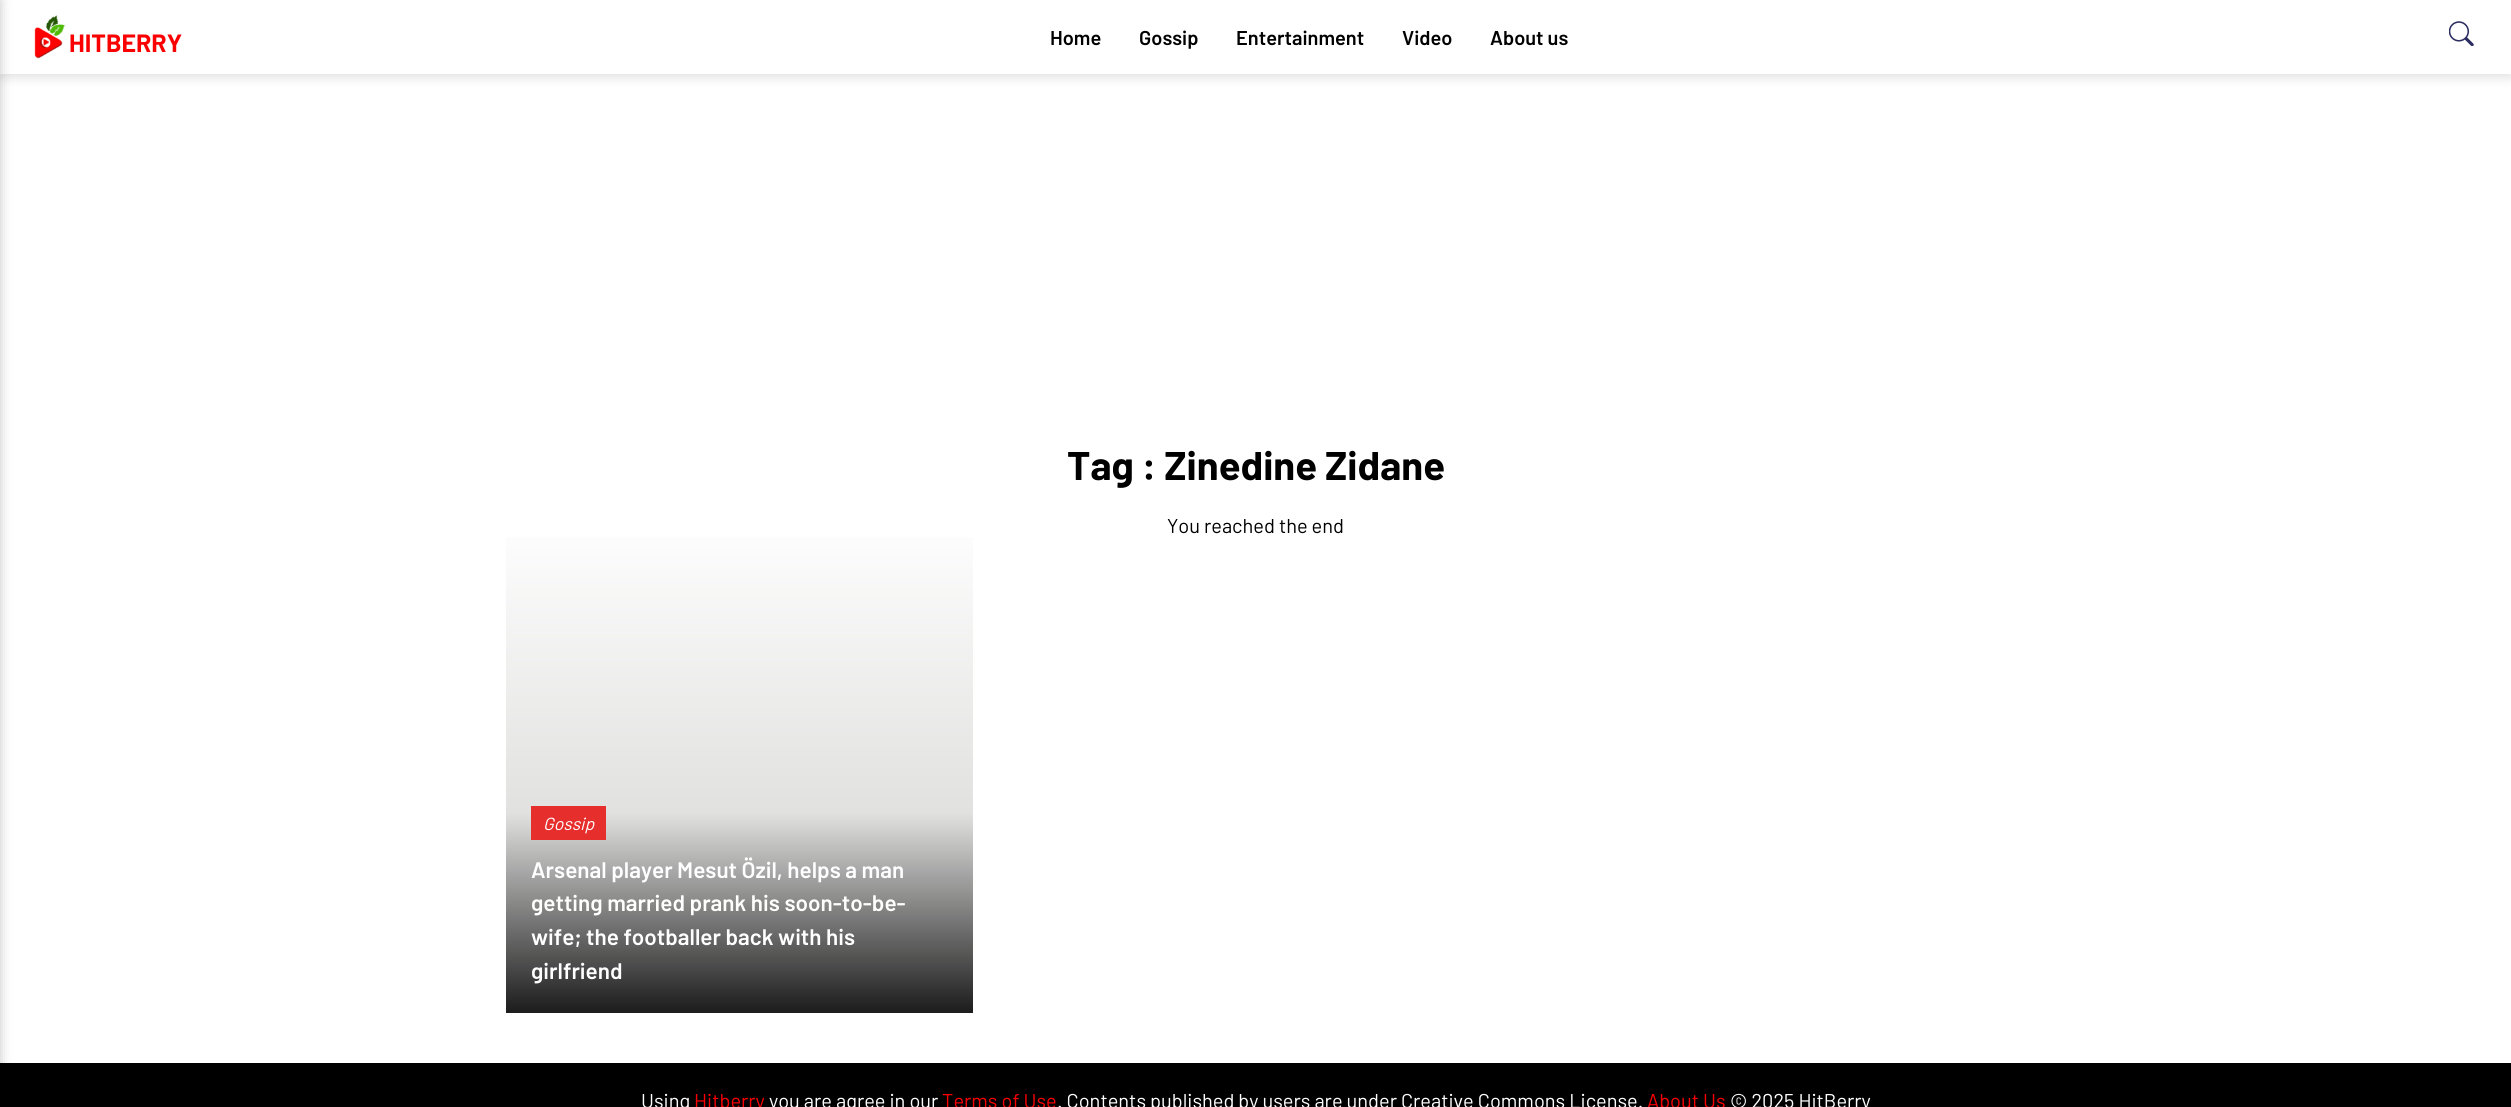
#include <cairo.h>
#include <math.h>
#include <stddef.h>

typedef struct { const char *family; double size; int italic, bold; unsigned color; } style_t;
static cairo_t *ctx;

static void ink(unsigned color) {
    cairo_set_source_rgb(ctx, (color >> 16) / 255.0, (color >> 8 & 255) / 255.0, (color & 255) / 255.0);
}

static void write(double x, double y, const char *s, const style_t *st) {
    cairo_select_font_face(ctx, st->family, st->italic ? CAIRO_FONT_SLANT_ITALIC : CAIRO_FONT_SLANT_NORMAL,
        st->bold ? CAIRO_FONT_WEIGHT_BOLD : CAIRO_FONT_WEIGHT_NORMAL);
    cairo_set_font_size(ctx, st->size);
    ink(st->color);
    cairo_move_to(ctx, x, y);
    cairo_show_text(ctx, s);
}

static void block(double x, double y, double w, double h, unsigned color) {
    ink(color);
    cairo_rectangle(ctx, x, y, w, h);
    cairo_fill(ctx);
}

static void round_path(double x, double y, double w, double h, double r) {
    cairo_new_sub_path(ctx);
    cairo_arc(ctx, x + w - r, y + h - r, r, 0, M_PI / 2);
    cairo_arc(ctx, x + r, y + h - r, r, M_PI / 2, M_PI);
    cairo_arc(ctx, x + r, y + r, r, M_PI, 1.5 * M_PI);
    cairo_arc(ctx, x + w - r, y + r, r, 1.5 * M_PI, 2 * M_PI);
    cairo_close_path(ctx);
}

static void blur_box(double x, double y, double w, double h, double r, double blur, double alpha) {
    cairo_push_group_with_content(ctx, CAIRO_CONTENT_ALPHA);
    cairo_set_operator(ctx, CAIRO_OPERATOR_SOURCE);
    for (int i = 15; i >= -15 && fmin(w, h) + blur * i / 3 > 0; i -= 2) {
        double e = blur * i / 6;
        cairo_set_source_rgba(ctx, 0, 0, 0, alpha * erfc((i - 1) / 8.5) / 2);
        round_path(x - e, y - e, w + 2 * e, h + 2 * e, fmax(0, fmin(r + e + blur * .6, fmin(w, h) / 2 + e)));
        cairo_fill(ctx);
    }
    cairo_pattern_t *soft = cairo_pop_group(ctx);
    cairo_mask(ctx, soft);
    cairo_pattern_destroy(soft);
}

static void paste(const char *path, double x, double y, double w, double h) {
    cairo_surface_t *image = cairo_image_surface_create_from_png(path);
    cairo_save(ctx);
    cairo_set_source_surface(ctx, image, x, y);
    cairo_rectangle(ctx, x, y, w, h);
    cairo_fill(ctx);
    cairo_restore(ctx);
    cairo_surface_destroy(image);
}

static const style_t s1 = {"Barlow", 25, 0, 1, 0xfa0000};
static const style_t s2 = {"Barlow SemiBold", 20, 0, 0, 0x000000};
static const style_t s3 = {"Barlow", 40, 0, 1, 0x000000};
static const style_t s4 = {"Barlow", 20, 0, 0, 0x000000};
static const style_t s5 = {"Barlow", 17.5, 1, 0, 0xffffff};
static const style_t s6 = {"Barlow SemiBold", 22.5, 0, 0, 0xffffff};
static const style_t s7 = {"Barlow", 20, 0, 0, 0xffffff};
static const style_t s8 = {"Barlow", 20, 0, 0, 0xfa0000};

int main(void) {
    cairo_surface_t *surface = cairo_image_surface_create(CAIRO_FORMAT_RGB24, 2511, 1107);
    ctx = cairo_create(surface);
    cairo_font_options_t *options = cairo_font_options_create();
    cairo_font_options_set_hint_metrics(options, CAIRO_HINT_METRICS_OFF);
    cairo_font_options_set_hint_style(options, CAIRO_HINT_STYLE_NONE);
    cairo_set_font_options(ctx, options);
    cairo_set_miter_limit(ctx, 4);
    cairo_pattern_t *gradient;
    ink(0xffffff);
    cairo_paint(ctx);
    ink(0x202124);
    blur_box(0, 4, 2511, 74, 0, 5, 0.13);
    block(0, 0, 2511, 74, 0xffffff);
    block(0, 1063, 2511, 44, 0x000000);
    ink(0x000000);
    blur_box(-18, 0, 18, 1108, 0, 6, 0.23);
    paste("pic1.png", 34, 15, 31, 44);
    write(69, 52, "HITBERRY", &s1);
    write(1050, 45, "Home", &s2);
    write(1139, 45, "Gossip", &s2);
    write(1236, 45, "Entertainment", &s2);
    write(1402, 45, "Video", &s2);
    write(1490, 45, "About us", &s2);
    paste("pic2.png", 2449, 21, 25, 25);
    write(1067, 480, "Tag : Zinedine Zidane", &s3);
    write(1167, 533, "You reached the end", &s4);
    gradient = cairo_pattern_create_linear(739, 513, 739, 1013);
    cairo_pattern_add_color_stop_rgba(gradient, 0, 1, 1, 1, 1);
    cairo_pattern_add_color_stop_rgba(gradient, 0.6, 0.882, 0.882, 0.878, 1);
    cairo_pattern_add_color_stop_rgba(gradient, 1, 0.11, 0.11, 0.11, 1);
    cairo_set_source(ctx, gradient);
    cairo_pattern_destroy(gradient);
    cairo_rectangle(ctx, 506, 537, 467, 476);
    cairo_fill(ctx);
    block(531, 806, 75, 34, 0xe62e2d);
    write(543, 830, "Gossip", &s5);
    write(531, 878, "Arsenal player Mesut Özil, helps a man", &s6);
    write(531, 911, "getting married prank his soon-to-be-", &s6);
    write(531, 945, "wife; the footballer back with his", &s6);
    write(531, 979, "girlfriend", &s6);
    write(641, 1108, "Using", &s7);
    write(694, 1108, "Hitberry", &s8);
    write(769, 1108, "you are agree in our", &s7);
    write(942, 1108, "Terms of Use", &s8);
    write(1057, 1108, ". Contents published by users are under Creative Commons License.", &s7);
    write(1647, 1108, "About Us", &s8);
    write(1730, 1108, "© 2025 HitBerry", &s7);
    cairo_surface_write_to_png(surface, "screenshot.png");
    cairo_font_options_destroy(options);
    cairo_destroy(ctx);
    cairo_surface_destroy(surface);
    return 0;
}
